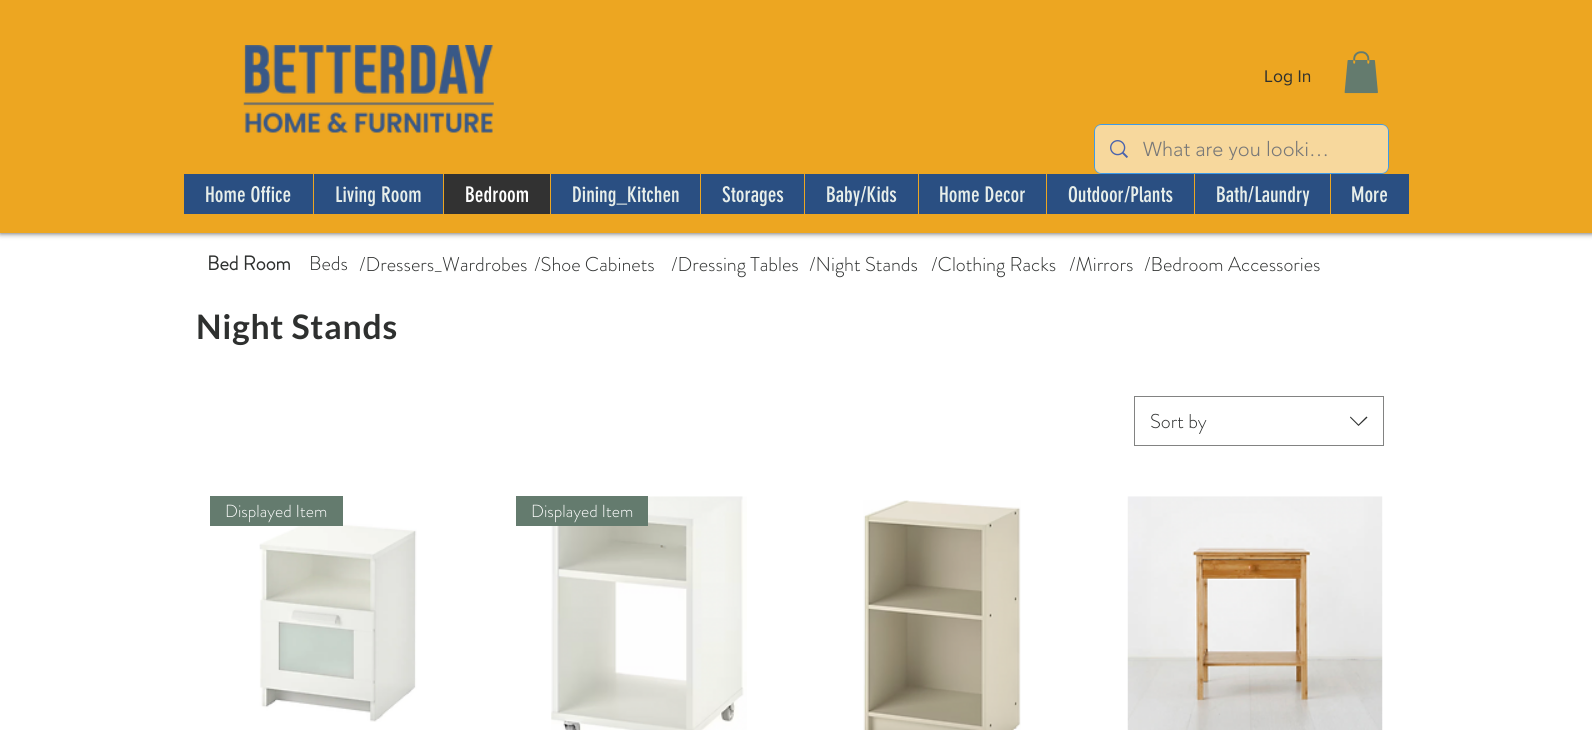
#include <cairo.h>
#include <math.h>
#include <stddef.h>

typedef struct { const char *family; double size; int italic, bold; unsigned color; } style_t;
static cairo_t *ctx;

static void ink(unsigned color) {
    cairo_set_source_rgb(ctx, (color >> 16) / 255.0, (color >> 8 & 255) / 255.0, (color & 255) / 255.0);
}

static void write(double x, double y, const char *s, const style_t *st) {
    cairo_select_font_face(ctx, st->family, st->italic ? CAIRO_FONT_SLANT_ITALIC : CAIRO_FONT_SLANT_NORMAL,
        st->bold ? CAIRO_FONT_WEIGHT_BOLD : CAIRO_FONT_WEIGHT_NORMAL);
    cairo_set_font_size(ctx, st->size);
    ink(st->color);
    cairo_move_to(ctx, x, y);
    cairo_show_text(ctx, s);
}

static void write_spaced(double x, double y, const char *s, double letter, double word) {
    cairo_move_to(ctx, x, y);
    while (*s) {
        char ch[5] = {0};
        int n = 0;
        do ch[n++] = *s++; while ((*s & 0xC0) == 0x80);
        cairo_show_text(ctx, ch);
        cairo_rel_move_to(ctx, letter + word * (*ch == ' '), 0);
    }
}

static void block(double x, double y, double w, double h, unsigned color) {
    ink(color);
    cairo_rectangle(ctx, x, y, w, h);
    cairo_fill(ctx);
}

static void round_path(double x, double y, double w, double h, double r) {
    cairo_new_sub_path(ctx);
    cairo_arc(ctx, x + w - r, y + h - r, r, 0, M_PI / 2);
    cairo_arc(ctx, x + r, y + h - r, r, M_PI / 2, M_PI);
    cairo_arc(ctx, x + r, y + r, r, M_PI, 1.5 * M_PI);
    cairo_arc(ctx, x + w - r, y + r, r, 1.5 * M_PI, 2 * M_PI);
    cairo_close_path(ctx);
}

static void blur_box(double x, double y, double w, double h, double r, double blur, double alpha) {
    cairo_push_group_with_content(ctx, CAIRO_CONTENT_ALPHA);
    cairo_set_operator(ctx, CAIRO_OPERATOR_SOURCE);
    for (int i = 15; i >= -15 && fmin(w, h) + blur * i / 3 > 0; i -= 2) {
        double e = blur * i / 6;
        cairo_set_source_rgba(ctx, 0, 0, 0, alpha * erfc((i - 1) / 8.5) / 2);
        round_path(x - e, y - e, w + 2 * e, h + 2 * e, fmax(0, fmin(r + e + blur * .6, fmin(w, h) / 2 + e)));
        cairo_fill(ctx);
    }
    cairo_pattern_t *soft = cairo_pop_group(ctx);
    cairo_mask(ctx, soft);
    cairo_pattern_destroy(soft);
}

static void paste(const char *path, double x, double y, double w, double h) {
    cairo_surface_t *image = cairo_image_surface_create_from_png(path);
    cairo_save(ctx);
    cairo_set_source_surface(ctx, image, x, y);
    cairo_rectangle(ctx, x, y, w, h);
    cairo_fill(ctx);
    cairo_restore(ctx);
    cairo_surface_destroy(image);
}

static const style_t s1 = {"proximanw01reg", 17.5, 0, 0, 0x2e302f};
static const style_t s2 = {"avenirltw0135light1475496 Light", 20, 0, 0, 0x787878};
static const style_t s3 = {"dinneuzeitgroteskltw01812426", 21.25, 0, 0, 0xe7eeea};
static const style_t s4 = {"dinneuzeitgroteskltw01812426", 21.25, 0, 0, 0xffffff};
static const style_t s5 = {"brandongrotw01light", 20, 0, 1, 0x2e302f};
static const style_t s6 = {"brandongrotw01light Light", 20, 0, 0, 0x2e302f};
static const style_t s7 = {"brandongrotw01light Light", 17.5, 0, 0, 0xffffff};

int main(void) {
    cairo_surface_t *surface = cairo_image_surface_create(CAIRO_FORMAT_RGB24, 1592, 730);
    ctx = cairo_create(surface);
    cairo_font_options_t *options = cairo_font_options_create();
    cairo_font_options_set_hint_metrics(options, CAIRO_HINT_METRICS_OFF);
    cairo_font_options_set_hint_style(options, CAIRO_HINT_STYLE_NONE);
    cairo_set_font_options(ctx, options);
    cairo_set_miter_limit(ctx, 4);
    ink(0xffffff);
    cairo_paint(ctx);
    ink(0x000000);
    blur_box(0, 0, 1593, 233, 0, 3, 0.7);
    block(0, 0, 1592, 233, 0xeda621);
    paste("pic1.png", 243, 45, 251, 88);
    write(1264, 82, "Log In", &s1);
    paste("pic2.png", 1344, 51, 34, 43);
    round_path(1094.5, 124.5, 294, 49, 7.5);
    ink(0x3d9be9);
    cairo_set_line_width(ctx, 1);
    cairo_stroke(ctx);
    cairo_set_source_rgba(ctx, 1, 1, 1, 0.56);
    round_path(1095, 125, 293, 48, 6);
    cairo_fill(ctx);
    paste("pic3.png", 1110, 140, 18, 18);
    cairo_save(ctx);
    cairo_rectangle(ctx, 1143, 136, 192, 24);
    cairo_clip(ctx);
    write(1143, 156, "What are you looki…", &s2);
    cairo_restore(ctx);
    block(184, 174, 1225, 40, 0x2a4f82);
    write(205, 202, "Home Office", &s3);
    block(313, 174, 1, 40, 0xeda621);
    write(335, 202, "Living Room", &s3);
    block(444, 174, 106, 40, 0x323232);
    block(443, 174, 1, 40, 0xeda621);
    write(465, 202, "Bedroom", &s4);
    block(550, 174, 1, 40, 0xeda621);
    write(572, 202, "Dining_Kitchen", &s3);
    block(700, 174, 1, 40, 0xeda621);
    write(722, 202, "Storages", &s3);
    block(804, 174, 1, 40, 0xeda621);
    write(826, 202, "Baby/Kids", &s3);
    block(918, 174, 1, 40, 0xeda621);
    write(939, 202, "Home Decor", &s3);
    block(1046, 174, 1, 40, 0xeda621);
    write(1068, 202, "Outdoor/Plants", &s3);
    block(1194, 174, 1, 40, 0xeda621);
    write(1216, 202, "Bath/Laundry", &s3);
    block(1330, 174, 1, 40, 0xeda621);
    write(1351, 202, "More", &s3);
    write(207, 270, "Bed Room", &s5);
    write(309, 270, "Beds", &s6);
    write(359, 271, "/Dressers_Wardrobes", &s6);
    write(534, 271, "/Shoe Cabinets", &s6);
    write(671, 271, "/Dressing Tables", &s6);
    write(809, 271, "/Night Stands", &s6);
    write(931, 271, "/Clothing Racks", &s6);
    write(1069, 271, "/Mirrors", &s6);
    write(1144, 271, "/Bedroom Accessories", &s6);
    cairo_select_font_face(ctx, "Lato", CAIRO_FONT_SLANT_NORMAL, CAIRO_FONT_WEIGHT_BOLD);
    cairo_set_font_size(ctx, 33.75);
    write_spaced(196, 339, "Night Stands", 0.75, 0);
    cairo_rectangle(ctx, 1134.5, 396.5, 249, 49);
    ink(0x828382);
    cairo_stroke(ctx);
    write(1150, 428, "Sort by", &s6);
    cairo_set_fill_rule(ctx, CAIRO_FILL_RULE_EVEN_ODD);
    cairo_new_path(ctx);
    cairo_move_to(ctx, 1366.5, 416.5);
    cairo_line_to(ctx, 1367.5, 417.5);
    cairo_line_to(ctx, 1358.5, 426);
    cairo_line_to(ctx, 1350, 417.5);
    cairo_line_to(ctx, 1350.5, 416.5);
    cairo_line_to(ctx, 1358.5, 424.5);
    cairo_close_path(ctx);
    cairo_fill(ctx);
    paste("pic4.png", 259, 522, 158, 200);
    block(210, 496, 133, 30, 0x647b6e);
    write(225, 517, "Displayed Item", &s7);
    paste("pic5.png", 551, 496, 196, 234);
    block(516, 496, 132, 30, 0x647b6e);
    write(531, 517, "Displayed Item", &s7);
    paste("pic6.png", 863, 500, 158, 230);
    paste("pic7.png", 1127, 496, 256, 234);
    cairo_surface_write_to_png(surface, "screenshot.png");
    cairo_font_options_destroy(options);
    cairo_destroy(ctx);
    cairo_surface_destroy(surface);
    return 0;
}
